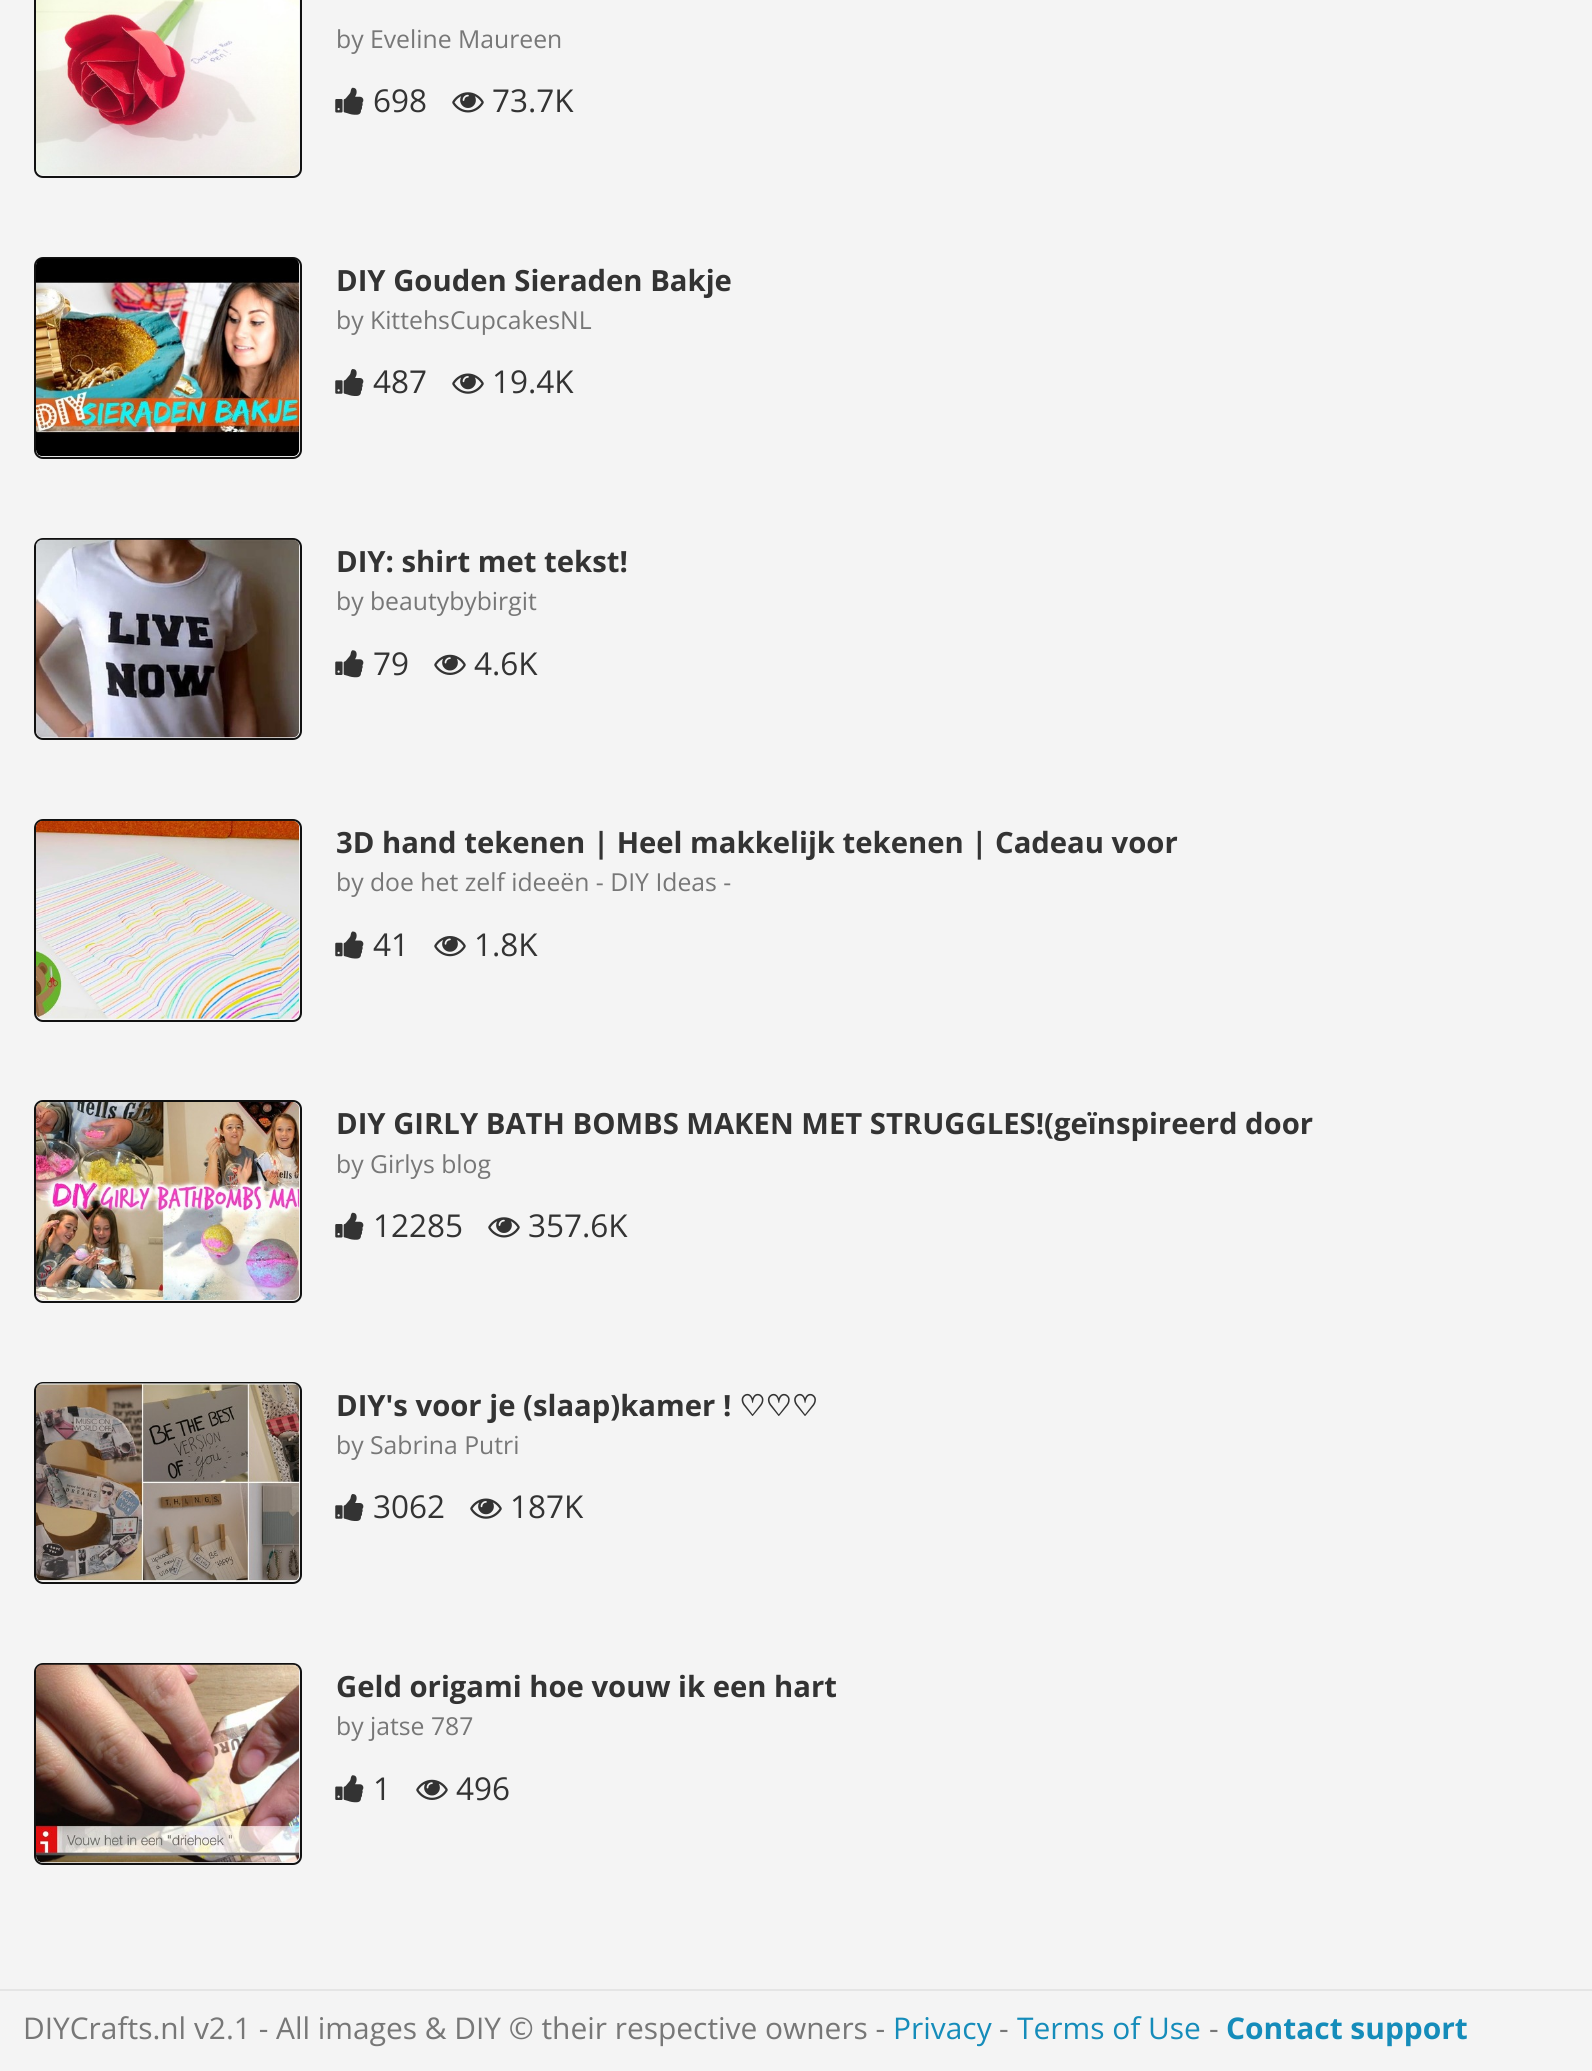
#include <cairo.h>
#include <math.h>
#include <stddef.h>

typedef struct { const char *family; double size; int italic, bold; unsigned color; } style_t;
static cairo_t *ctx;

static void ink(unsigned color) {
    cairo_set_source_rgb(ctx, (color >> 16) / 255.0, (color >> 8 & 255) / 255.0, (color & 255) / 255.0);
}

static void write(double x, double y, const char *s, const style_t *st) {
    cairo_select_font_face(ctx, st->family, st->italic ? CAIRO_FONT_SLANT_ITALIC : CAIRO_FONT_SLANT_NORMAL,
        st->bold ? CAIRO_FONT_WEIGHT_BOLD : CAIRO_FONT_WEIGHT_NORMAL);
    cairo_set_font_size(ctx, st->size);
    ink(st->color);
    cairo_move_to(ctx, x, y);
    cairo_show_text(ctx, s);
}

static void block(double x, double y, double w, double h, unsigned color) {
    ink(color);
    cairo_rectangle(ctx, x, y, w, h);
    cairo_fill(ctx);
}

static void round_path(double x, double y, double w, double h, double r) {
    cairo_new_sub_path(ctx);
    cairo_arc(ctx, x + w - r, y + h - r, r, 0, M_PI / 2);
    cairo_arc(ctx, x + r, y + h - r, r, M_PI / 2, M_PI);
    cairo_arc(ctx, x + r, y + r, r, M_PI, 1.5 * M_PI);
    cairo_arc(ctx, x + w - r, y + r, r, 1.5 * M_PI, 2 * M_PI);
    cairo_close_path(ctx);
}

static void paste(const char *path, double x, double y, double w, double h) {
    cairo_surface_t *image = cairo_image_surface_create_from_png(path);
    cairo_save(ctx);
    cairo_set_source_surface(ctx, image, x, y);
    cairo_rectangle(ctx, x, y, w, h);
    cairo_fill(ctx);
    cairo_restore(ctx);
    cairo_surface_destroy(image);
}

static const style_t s1 = {"Open Sans", 24.75, 0, 0, 0x777777};
static const style_t s2 = {"Open Sans", 31.5, 0, 0, 0x333333};
static const style_t s3 = {"Open Sans", 29.25, 0, 1, 0x333333};
static const style_t s4 = {"DejaVu Sans", 29.25, 0, 1, 0x333333};
static const style_t s5 = {"Open Sans", 29.9, 0, 0, 0x777777};
static const style_t s6 = {"Open Sans", 29.9, 0, 0, 0x158cba};
static const style_t s7 = {"Open Sans", 29.9, 0, 1, 0x158cba};

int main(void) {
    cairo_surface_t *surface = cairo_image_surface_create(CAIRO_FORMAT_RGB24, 1592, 2071);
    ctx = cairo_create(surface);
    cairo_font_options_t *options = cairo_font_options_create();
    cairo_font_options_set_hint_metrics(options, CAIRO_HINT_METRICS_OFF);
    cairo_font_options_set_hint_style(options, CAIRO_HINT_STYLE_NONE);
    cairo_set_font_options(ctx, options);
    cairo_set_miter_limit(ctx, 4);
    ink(0xf4f4f4);
    cairo_paint(ctx);
    round_path(35, -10, 266, 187, 8);
    ink(0x111111);
    cairo_stroke(ctx);
    paste("pic1.png", 36, 0, 263, 175);
    write(336, 48, "by Eveline Maureen", &s1);
    paste("pic2.png", 335, 87, 29, 28);
    write(373, 112, "698", &s2);
    paste("pic3.png", 452, 92, 32, 21);
    write(492, 112, "73.7K", &s2);
    round_path(35, 258, 266, 200, 8);
    ink(0x111111);
    cairo_stroke(ctx);
    paste("pic4.png", 36, 258, 264, 199);
    write(336, 291, "DIY Gouden Sieraden Bakje", &s3);
    write(336, 329, "by KittehsCupcakesNL", &s1);
    paste("pic5.png", 335, 369, 29, 27);
    write(373, 393, "487", &s2);
    paste("pic6.png", 452, 373, 32, 21);
    write(492, 393, "19.4K", &s2);
    round_path(35, 539, 266, 200, 8);
    ink(0x111111);
    cairo_stroke(ctx);
    paste("pic7.png", 36, 539, 264, 199);
    write(336, 572, "DIY: shirt met tekst!", &s3);
    write(336, 610, "by beautybybirgit", &s1);
    paste("pic8.png", 335, 650, 29, 28);
    write(373, 675, "79", &s2);
    paste("pic9.png", 434, 654, 32, 21);
    write(474, 675, "4.6K", &s2);
    round_path(35, 820, 266, 201, 8);
    ink(0x111111);
    cairo_stroke(ctx);
    paste("pic10.png", 36, 820, 264, 199);
    write(336, 853, "3D hand tekenen | Heel makkelijk tekenen | Cadeau voor", &s3);
    write(336, 891, "by doe het zelf ideeën - DIY Ideas -", &s1);
    paste("pic11.png", 335, 931, 29, 28);
    write(373, 956, "41", &s2);
    paste("pic12.png", 434, 936, 32, 21);
    write(474, 956, "1.8K", &s2);
    round_path(35, 1101, 266, 201, 8);
    ink(0x111111);
    cairo_stroke(ctx);
    paste("pic13.png", 36, 1102, 264, 198);
    write(336, 1134, "DIY GIRLY BATH BOMBS MAKEN MET STRUGGLES!(geïnspireerd door", &s3);
    write(336, 1173, "by Girlys blog", &s1);
    paste("pic2.png", 335, 1212, 29, 28);
    write(373, 1237, "12285", &s2);
    paste("pic3.png", 488, 1217, 32, 21);
    write(528, 1237, "357.6K", &s2);
    round_path(35, 1383, 266, 200, 8);
    ink(0x111111);
    cairo_stroke(ctx);
    paste("pic14.png", 36, 1383, 264, 198);
    write(336, 1416, "DIY's voor je (slaap)kamer !", &s3);
    write(739, 1416, "♡♡♡", &s4);
    write(336, 1454, "by Sabrina Putri", &s1);
    paste("pic5.png", 335, 1494, 29, 27);
    write(373, 1518, "3062", &s2);
    paste("pic6.png", 470, 1498, 32, 21);
    write(510, 1518, "187K", &s2);
    round_path(35, 1664, 266, 200, 8);
    ink(0x111111);
    cairo_stroke(ctx);
    paste("pic15.png", 36, 1664, 264, 199);
    write(336, 1697, "Geld origami hoe vouw ik een hart", &s3);
    write(336, 1735, "by jatse 787", &s1);
    paste("pic8.png", 335, 1775, 29, 28);
    write(373, 1800, "1", &s2);
    paste("pic9.png", 416, 1779, 32, 21);
    write(456, 1800, "496", &s2);
    block(0, 1989, 1592, 2, 0xe5e5e5);
    write(23, 2039, "DIYCrafts.nl v2.1 - All images & DIY © their respective owners -", &s5);
    write(893, 2039, "Privacy", &s6);
    write(999, 2039, "-", &s5);
    write(1017, 2039, "Terms of Use", &s6);
    write(1209, 2039, "-", &s5);
    write(1226, 2039, "Contact support", &s7);
    cairo_surface_write_to_png(surface, "screenshot.png");
    cairo_font_options_destroy(options);
    cairo_destroy(ctx);
    cairo_surface_destroy(surface);
    return 0;
}
